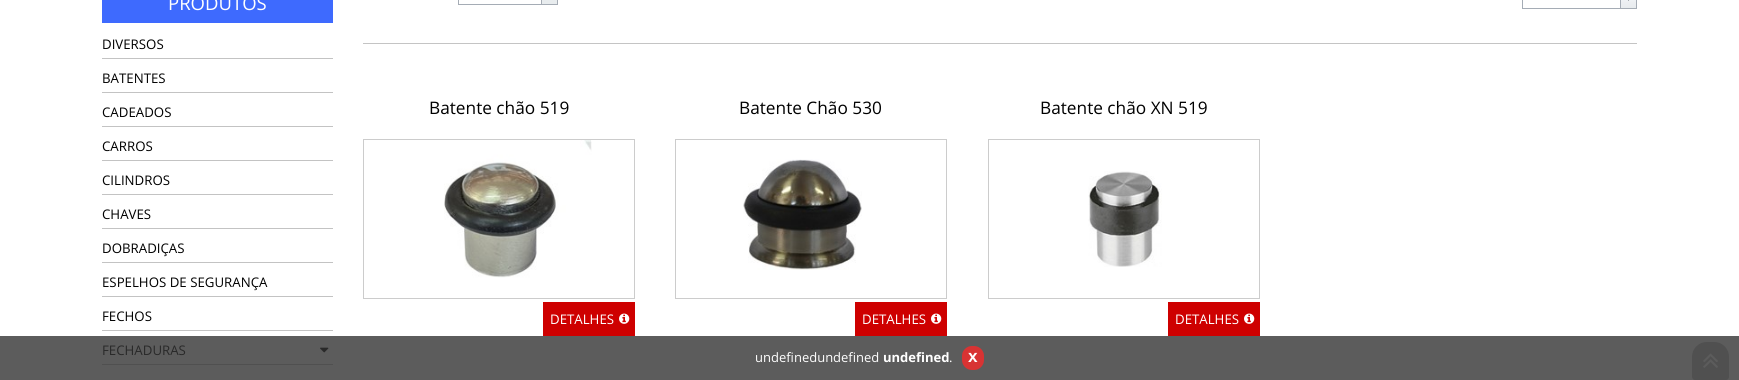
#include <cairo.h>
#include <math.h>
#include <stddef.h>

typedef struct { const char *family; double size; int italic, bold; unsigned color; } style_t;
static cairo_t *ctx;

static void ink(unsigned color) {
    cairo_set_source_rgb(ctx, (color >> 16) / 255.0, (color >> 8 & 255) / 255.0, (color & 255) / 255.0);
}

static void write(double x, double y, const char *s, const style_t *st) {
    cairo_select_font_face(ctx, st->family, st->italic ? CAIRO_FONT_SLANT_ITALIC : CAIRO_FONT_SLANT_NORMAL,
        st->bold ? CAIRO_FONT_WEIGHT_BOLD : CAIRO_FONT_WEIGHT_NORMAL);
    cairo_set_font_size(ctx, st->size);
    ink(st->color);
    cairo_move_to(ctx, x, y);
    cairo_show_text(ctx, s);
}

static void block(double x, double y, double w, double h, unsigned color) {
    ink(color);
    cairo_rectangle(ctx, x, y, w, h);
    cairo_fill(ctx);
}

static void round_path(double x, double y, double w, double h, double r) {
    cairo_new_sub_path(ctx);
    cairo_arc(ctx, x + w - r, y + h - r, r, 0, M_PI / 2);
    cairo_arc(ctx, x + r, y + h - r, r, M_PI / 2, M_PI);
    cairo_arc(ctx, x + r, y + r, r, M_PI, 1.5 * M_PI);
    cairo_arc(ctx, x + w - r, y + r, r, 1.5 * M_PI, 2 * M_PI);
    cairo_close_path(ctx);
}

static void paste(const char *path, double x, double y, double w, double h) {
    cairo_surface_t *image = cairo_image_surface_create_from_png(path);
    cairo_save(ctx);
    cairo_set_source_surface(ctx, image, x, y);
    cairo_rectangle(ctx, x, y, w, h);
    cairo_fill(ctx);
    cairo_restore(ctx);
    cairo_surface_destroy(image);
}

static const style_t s1 = {"Open Sans", 18.5, 0, 0, 0xffffff};
static const style_t s2 = {"Open Sans", 13.25, 0, 0, 0x000000};
static const style_t s3 = {"Open Sans", 13.25, 0, 0, 0x292929};
static const style_t s4 = {"Open Sans", 17.25, 0, 0, 0x000000};
static const style_t s5 = {"Open Sans", 13.25, 0, 0, 0xffffff};
static const style_t s6 = {"Open Sans", 13, 0, 0, 0xffffff};
static const style_t s7 = {"Open Sans", 13, 0, 1, 0xffffff};
static const style_t s8 = {"Liberation Sans", 17.25, 0, 1, 0xffffff};

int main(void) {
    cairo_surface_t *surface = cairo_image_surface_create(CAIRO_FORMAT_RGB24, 1739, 380);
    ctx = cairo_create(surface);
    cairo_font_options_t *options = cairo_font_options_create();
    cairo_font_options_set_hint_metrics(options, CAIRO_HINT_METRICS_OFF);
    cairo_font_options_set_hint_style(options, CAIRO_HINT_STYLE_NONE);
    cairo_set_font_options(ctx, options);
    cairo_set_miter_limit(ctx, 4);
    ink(0xffffff);
    cairo_paint(ctx);
    block(0, 336, 1739, 44, 0x5c5c5c);
    block(102, 0, 231, 23, 0x3e6afe);
    write(168, 10, "PRODUTOS", &s1);
    block(102, 58, 231, 1, 0xc3c3c3);
    write(102, 49, "DIVERSOS", &s2);
    block(102, 92, 231, 1, 0xc3c3c3);
    write(102, 83, "BATENTES", &s2);
    block(102, 126, 231, 1, 0xc3c3c3);
    write(102, 117, "CADEADOS", &s2);
    block(102, 160, 231, 1, 0xc3c3c3);
    write(102, 151, "CARROS", &s2);
    block(102, 194, 231, 1, 0xc3c3c3);
    write(102, 185, "CILINDROS", &s2);
    block(102, 228, 231, 1, 0xc3c3c3);
    write(102, 219, "CHAVES", &s2);
    block(102, 262, 231, 1, 0xc3c3c3);
    write(102, 253, "DOBRADIÇAS", &s2);
    block(102, 296, 231, 1, 0xc3c3c3);
    write(102, 287, "ESPELHOS DE SEGURANÇA", &s2);
    block(102, 330, 231, 1, 0xc3c3c3);
    write(102, 321, "FECHOS", &s2);
    block(102, 364, 231, 1, 0x505050);
    write(102, 355, "FECHADURAS", &s3);
    paste("pic1.png", 320, 347, 9, 6);
    cairo_rectangle(ctx, 458.5, -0.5, 99, 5);
    ink(0xa5acb5);
    cairo_set_line_width(ctx, 1);
    cairo_stroke(ctx);
    block(542, 0, 15, 4, 0xe8ecee);
    block(541, 0, 1, 4, 0xa5acb5);
    cairo_rectangle(ctx, 1522.5, -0.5, 114, 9);
    cairo_stroke(ctx);
    paste("pic2.png", 1621, 0, 15, 8);
    block(1620, 0, 1, 8, 0xa5acb5);
    block(1628, 0, 1, 1, 0xa9aeb2);
    block(363, 43, 1274, 1, 0xc4c4c4);
    write(429, 114, "Batente chão 519", &s4);
    cairo_rectangle(ctx, 363.5, 139.5, 271, 159);
    ink(0xcccccc);
    cairo_stroke(ctx);
    paste("pic3.png", 444, 140, 148, 138);
    block(543, 302, 92, 34, 0xce0000);
    write(550, 324, "DETALHES", &s5);
    paste("pic4.png", 619, 313, 11, 11);
    write(739, 114, "Batente Chão 530", &s4);
    cairo_rectangle(ctx, 675.5, 139.5, 271, 159);
    ink(0xcccccc);
    cairo_stroke(ctx);
    paste("pic5.png", 743, 159, 119, 111);
    block(855, 302, 92, 34, 0xce0000);
    write(862, 324, "DETALHES", &s5);
    paste("pic4.png", 931, 313, 11, 11);
    write(1040, 114, "Batente chão XN 519", &s4);
    cairo_rectangle(ctx, 988.5, 139.5, 271, 159);
    ink(0xcccccc);
    cairo_stroke(ctx);
    paste("pic6.png", 1088, 171, 74, 96);
    block(1168, 302, 92, 34, 0xce0000);
    write(1175, 324, "DETALHES", &s5);
    paste("pic4.png", 1244, 313, 11, 11);
    ink(0x505050);
    cairo_new_path(ctx);
    cairo_move_to(ctx, 1707, 342);
    cairo_line_to(ctx, 1714, 342);
    cairo_curve_to(ctx, 1722.5, 342, 1729, 348.5, 1729, 357);
    cairo_line_to(ctx, 1729, 377);
    cairo_curve_to(ctx, 1729, 378.5, 1727.5, 380, 1726, 380);
    cairo_line_to(ctx, 1695, 380);
    cairo_curve_to(ctx, 1693.5, 380, 1692, 378.5, 1692, 377);
    cairo_line_to(ctx, 1692, 357);
    cairo_curve_to(ctx, 1692, 348.5, 1698.5, 342, 1707, 342);
    cairo_close_path(ctx);
    cairo_fill(ctx);
    paste("pic7.png", 1703, 353, 15, 15);
    write(755, 362, "undefinedundefined", &s6);
    write(883, 362, "undefined", &s7);
    write(949, 362, ".", &s6);
    ink(0xd83333);
    round_path(962, 346, 22, 24, 10);
    cairo_fill(ctx);
    write(968, 362, "x", &s8);
    cairo_surface_write_to_png(surface, "screenshot.png");
    cairo_font_options_destroy(options);
    cairo_destroy(ctx);
    cairo_surface_destroy(surface);
    return 0;
}
